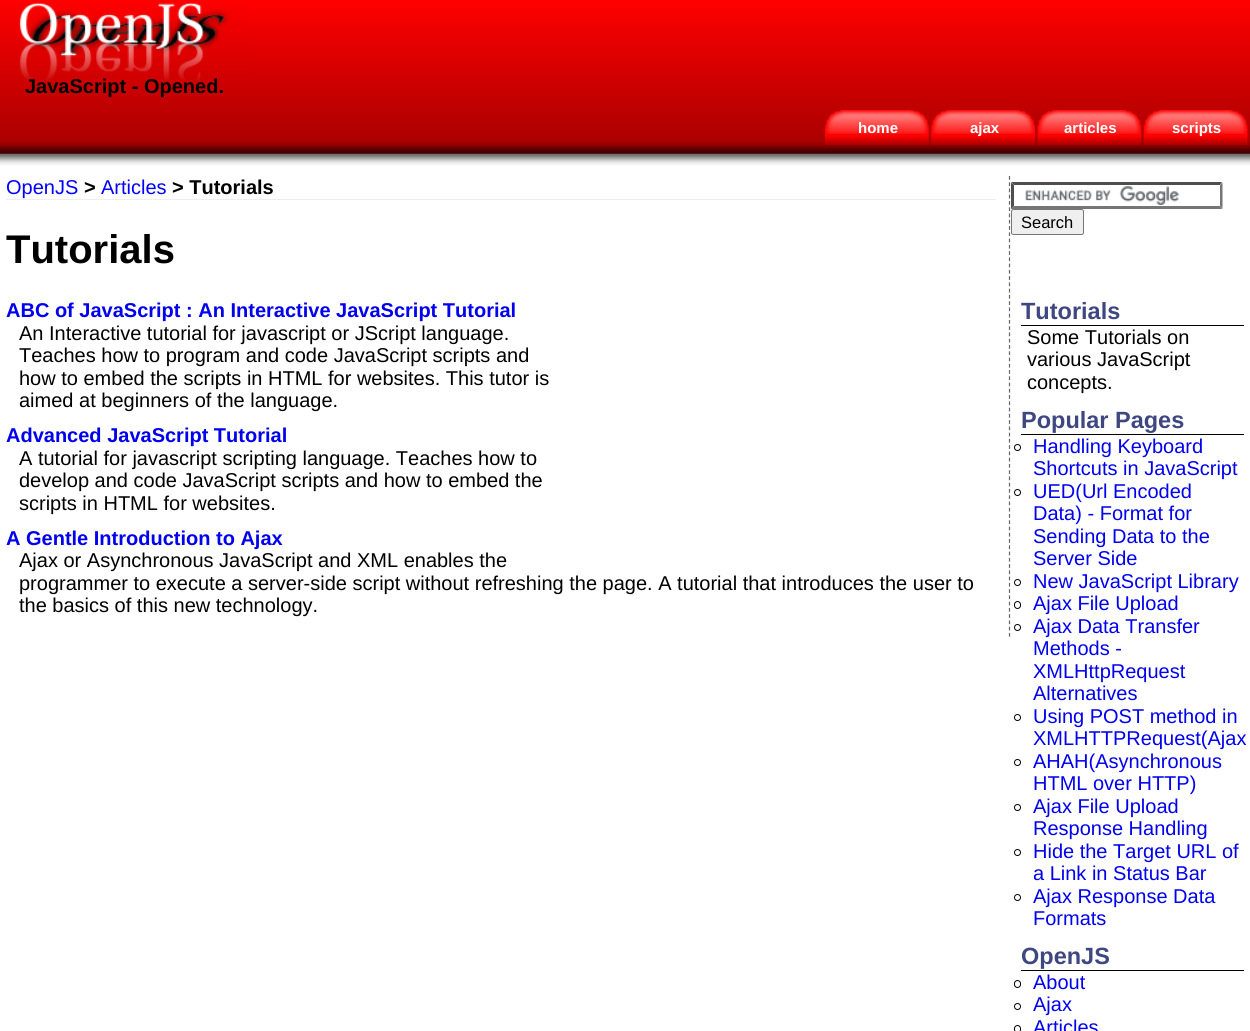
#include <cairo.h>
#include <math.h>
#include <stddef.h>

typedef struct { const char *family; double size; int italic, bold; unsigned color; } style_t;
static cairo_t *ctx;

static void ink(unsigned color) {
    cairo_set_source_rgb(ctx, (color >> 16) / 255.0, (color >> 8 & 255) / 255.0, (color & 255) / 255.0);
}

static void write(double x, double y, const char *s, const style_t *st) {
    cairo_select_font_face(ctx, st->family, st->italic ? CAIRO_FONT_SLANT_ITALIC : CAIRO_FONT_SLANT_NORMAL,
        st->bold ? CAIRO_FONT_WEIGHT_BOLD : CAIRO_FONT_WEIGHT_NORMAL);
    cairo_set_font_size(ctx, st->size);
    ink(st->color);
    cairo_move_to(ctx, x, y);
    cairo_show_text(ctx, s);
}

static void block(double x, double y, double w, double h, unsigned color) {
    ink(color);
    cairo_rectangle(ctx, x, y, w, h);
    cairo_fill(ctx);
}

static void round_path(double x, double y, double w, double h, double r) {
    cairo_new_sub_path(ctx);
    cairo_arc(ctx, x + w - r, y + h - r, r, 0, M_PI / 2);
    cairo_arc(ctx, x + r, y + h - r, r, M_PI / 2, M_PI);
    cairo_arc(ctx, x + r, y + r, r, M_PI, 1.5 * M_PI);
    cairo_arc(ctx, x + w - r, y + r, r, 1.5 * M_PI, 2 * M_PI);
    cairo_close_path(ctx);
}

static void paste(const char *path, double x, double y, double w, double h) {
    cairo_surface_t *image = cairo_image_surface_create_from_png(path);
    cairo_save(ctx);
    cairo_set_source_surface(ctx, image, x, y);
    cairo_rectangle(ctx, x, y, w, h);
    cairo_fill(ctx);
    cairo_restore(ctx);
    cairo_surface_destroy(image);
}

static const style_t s1 = {"Liberation Sans", 20, 0, 1, 0x000000};
static const style_t s2 = {"Liberation Sans", 15, 0, 1, 0xffffff};
static const style_t s3 = {"Liberation Sans", 20, 0, 0, 0x0000ff};
static const style_t s4 = {"Liberation Sans", 40, 0, 1, 0x000000};
static const style_t s5 = {"Liberation Sans", 20, 0, 1, 0x0000ee};
static const style_t s6 = {"Liberation Sans", 20, 0, 0, 0x000000};
static const style_t s7 = {"Liberation Sans", 16.5, 0, 0, 0x000000};
static const style_t s8 = {"Liberation Sans", 23.5, 0, 1, 0x3f4782};
static const style_t s9 = {"Liberation Sans", 20, 0, 0, 0x0000ee};

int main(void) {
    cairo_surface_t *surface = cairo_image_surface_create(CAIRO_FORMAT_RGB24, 1250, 1031);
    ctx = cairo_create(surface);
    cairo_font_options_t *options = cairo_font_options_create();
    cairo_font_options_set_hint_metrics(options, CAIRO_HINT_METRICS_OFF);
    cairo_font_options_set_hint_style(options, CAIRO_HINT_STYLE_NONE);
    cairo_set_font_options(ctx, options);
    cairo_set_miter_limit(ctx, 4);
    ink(0xffffff);
    cairo_paint(ctx);
    block(0, 0, 1250, 8, 0xff0000);
    paste("pic1.png", 0, 8, 1250, 158);
    paste("pic2.png", 0, 2, 250, 79);
    write(25, 93, "JavaScript - Opened.", &s1);
    paste("pic3.png", 825, 110, 104, 35);
    write(858, 133, "home", &s2);
    paste("pic4.png", 931, 110, 104, 35);
    write(970, 133, "ajax", &s2);
    paste("pic5.png", 1037, 110, 105, 35);
    write(1064, 133, "articles", &s2);
    paste("pic6.png", 1143, 110, 105, 35);
    write(1172, 133, "scripts", &s2);
    cairo_new_path(ctx);
    cairo_move_to(ctx, 1009.5, 176);
    cairo_line_to(ctx, 1009.5, 637.5);
    ink(0x666666);
    cairo_set_line_width(ctx, 1.2);
    cairo_set_dash(ctx, (double[]){3.75, 2.51}, 2, 0);
    cairo_stroke(ctx);
    block(6, 199, 990, 1, 0xeeeeee);
    write(6, 194, "OpenJS", &s3);
    write(84, 194, ">", &s1);
    write(101, 194, "Articles", &s3);
    write(172, 194, "> Tutorials", &s1);
    write(6, 263, "Tutorials", &s4);
    write(6, 317, "ABC of JavaScript : An Interactive JavaScript Tutorial", &s5);
    write(19, 340, "An Interactive tutorial for javascript or JScript language.", &s6);
    write(19, 362, "Teaches how to program and code JavaScript scripts and", &s6);
    write(19, 385, "how to embed the scripts in HTML for websites. This tutor is", &s6);
    write(19, 407, "aimed at beginners of the language.", &s6);
    write(6, 442, "Advanced JavaScript Tutorial", &s5);
    write(19, 465, "A tutorial for javascript scripting language. Teaches how to", &s6);
    write(19, 487, "develop and code JavaScript scripts and how to embed the", &s6);
    write(19, 510, "scripts in HTML for websites.", &s6);
    write(6, 545, "A Gentle Introduction to Ajax", &s5);
    write(19, 567, "Ajax or Asynchronous JavaScript and XML enables the", &s6);
    write(19, 590, "programmer to execute a server-side script without refreshing the page. A tutorial that introduces the user to", &s6);
    write(19, 612, "the basics of this new technology.", &s6);
    paste("pic7.png", 1025, 186, 154, 19);
    ink(0x4f4f4f);
    cairo_new_path(ctx);
    cairo_move_to(ctx, 1011, 182);
    cairo_line_to(ctx, 1222, 182);
    cairo_line_to(ctx, 1220, 185);
    cairo_line_to(ctx, 1014, 185);
    cairo_close_path(ctx);
    cairo_fill(ctx);
    ink(0x767676);
    cairo_new_path(ctx);
    cairo_move_to(ctx, 1222.5, 182.5);
    cairo_line_to(ctx, 1222.5, 209);
    cairo_line_to(ctx, 1220, 206);
    cairo_line_to(ctx, 1220, 185);
    cairo_close_path(ctx);
    cairo_fill(ctx);
    cairo_new_path(ctx);
    cairo_move_to(ctx, 1222, 209);
    cairo_line_to(ctx, 1011, 209);
    cairo_line_to(ctx, 1014, 206);
    cairo_line_to(ctx, 1220, 206);
    cairo_close_path(ctx);
    cairo_fill(ctx);
    ink(0x4f4f4f);
    cairo_new_path(ctx);
    cairo_move_to(ctx, 1011, 209);
    cairo_line_to(ctx, 1011, 182.5);
    cairo_line_to(ctx, 1014, 185);
    cairo_line_to(ctx, 1014, 206);
    cairo_close_path(ctx);
    cairo_fill(ctx);
    ink(0xefefef);
    round_path(1011.5, 209.5, 72, 25, 2);
    cairo_fill_preserve(ctx);
    ink(0x767676);
    cairo_set_line_width(ctx, 1);
    cairo_set_dash(ctx, NULL, 0, 0);
    cairo_stroke(ctx);
    write(1021, 228, "Search", &s7);
    block(1021, 325, 223, 1, 0x000000);
    write(1021, 319, "Tutorials", &s8);
    write(1027, 344, "Some Tutorials on", &s6);
    write(1027, 366, "various JavaScript", &s6);
    write(1027, 389, "concepts.", &s6);
    block(1021, 434, 223, 1, 0x000000);
    write(1021, 428, "Popular Pages", &s8);
    cairo_new_path(ctx);
    cairo_arc(ctx, 1017.5, 447.5, 3, 0, 2 * M_PI);
    ink(0x000000);
    cairo_stroke(ctx);
    write(1033, 453, "Handling Keyboard", &s9);
    write(1033, 475, "Shortcuts in JavaScript", &s9);
    cairo_new_path(ctx);
    cairo_arc(ctx, 1017.5, 492.5, 3, 0, 2 * M_PI);
    ink(0x000000);
    cairo_stroke(ctx);
    write(1033, 498, "UED(Url Encoded", &s9);
    write(1033, 520, "Data) - Format for", &s9);
    write(1033, 543, "Sending Data to the", &s9);
    write(1033, 565, "Server Side", &s9);
    cairo_new_path(ctx);
    cairo_arc(ctx, 1017.5, 582.5, 3, 0, 2 * M_PI);
    ink(0x000000);
    cairo_stroke(ctx);
    write(1033, 588, "New JavaScript Library", &s9);
    round_path(1014.5, 601.5, 6, 7, 3);
    ink(0x000000);
    cairo_stroke(ctx);
    write(1033, 610, "Ajax File Upload", &s9);
    cairo_new_path(ctx);
    cairo_arc(ctx, 1017.5, 627.5, 3, 0, 2 * M_PI);
    ink(0x000000);
    cairo_stroke(ctx);
    write(1033, 633, "Ajax Data Transfer", &s9);
    write(1033, 655, "Methods -", &s9);
    write(1033, 678, "XMLHttpRequest", &s9);
    write(1033, 700, "Alternatives", &s9);
    cairo_new_path(ctx);
    cairo_arc(ctx, 1017.5, 717.5, 3, 0, 2 * M_PI);
    ink(0x000000);
    cairo_stroke(ctx);
    write(1033, 723, "Using POST method in", &s9);
    write(1033, 745, "XMLHTTPRequest(Ajax", &s9);
    cairo_new_path(ctx);
    cairo_arc(ctx, 1017.5, 762.5, 3, 0, 2 * M_PI);
    ink(0x000000);
    cairo_stroke(ctx);
    write(1033, 768, "AHAH(Asynchronous", &s9);
    write(1033, 790, "HTML over HTTP)", &s9);
    cairo_new_path(ctx);
    cairo_arc(ctx, 1017.5, 807.5, 3, 0, 2 * M_PI);
    ink(0x000000);
    cairo_stroke(ctx);
    write(1033, 813, "Ajax File Upload", &s9);
    write(1033, 835, "Response Handling", &s9);
    cairo_new_path(ctx);
    cairo_arc(ctx, 1017.5, 852.5, 3, 0, 2 * M_PI);
    ink(0x000000);
    cairo_stroke(ctx);
    write(1033, 858, "Hide the Target URL of", &s9);
    write(1033, 880, "a Link in Status Bar", &s9);
    cairo_new_path(ctx);
    cairo_arc(ctx, 1017.5, 897.5, 3, 0, 2 * M_PI);
    ink(0x000000);
    cairo_stroke(ctx);
    write(1033, 903, "Ajax Response Data", &s9);
    write(1033, 925, "Formats", &s9);
    block(1021, 970, 223, 1, 0x000000);
    write(1021, 964, "OpenJS", &s8);
    round_path(1014.5, 980.5, 6, 7, 3);
    ink(0x000000);
    cairo_stroke(ctx);
    write(1033, 989, "About", &s9);
    cairo_new_path(ctx);
    cairo_arc(ctx, 1017.5, 1006.5, 3, 0, 2 * M_PI);
    ink(0x000000);
    cairo_stroke(ctx);
    write(1033, 1011, "Ajax", &s9);
    round_path(1014.5, 1025.5, 6, 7, 3);
    ink(0x000000);
    cairo_stroke(ctx);
    write(1033, 1034, "Articles", &s9);
    cairo_surface_write_to_png(surface, "screenshot.png");
    cairo_font_options_destroy(options);
    cairo_destroy(ctx);
    cairo_surface_destroy(surface);
    return 0;
}
